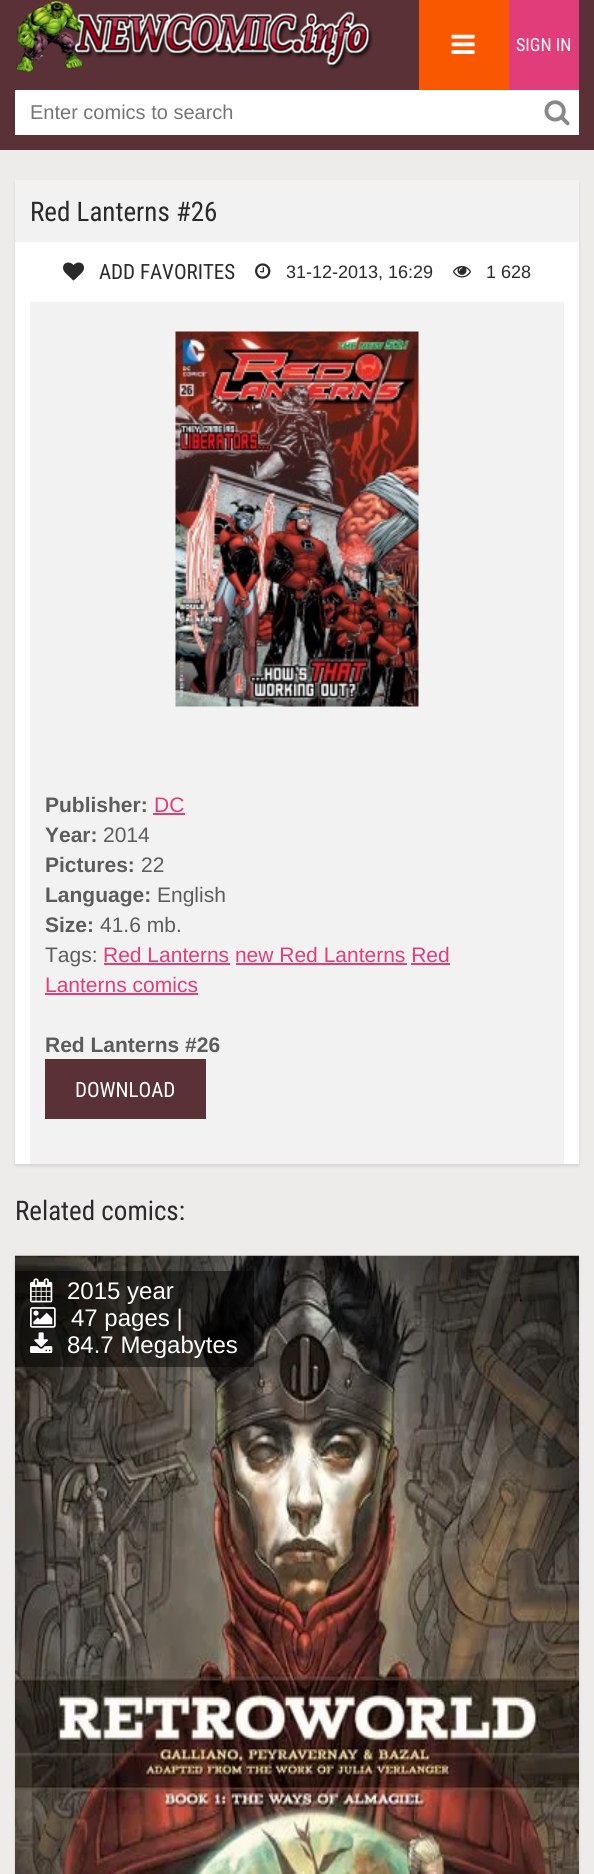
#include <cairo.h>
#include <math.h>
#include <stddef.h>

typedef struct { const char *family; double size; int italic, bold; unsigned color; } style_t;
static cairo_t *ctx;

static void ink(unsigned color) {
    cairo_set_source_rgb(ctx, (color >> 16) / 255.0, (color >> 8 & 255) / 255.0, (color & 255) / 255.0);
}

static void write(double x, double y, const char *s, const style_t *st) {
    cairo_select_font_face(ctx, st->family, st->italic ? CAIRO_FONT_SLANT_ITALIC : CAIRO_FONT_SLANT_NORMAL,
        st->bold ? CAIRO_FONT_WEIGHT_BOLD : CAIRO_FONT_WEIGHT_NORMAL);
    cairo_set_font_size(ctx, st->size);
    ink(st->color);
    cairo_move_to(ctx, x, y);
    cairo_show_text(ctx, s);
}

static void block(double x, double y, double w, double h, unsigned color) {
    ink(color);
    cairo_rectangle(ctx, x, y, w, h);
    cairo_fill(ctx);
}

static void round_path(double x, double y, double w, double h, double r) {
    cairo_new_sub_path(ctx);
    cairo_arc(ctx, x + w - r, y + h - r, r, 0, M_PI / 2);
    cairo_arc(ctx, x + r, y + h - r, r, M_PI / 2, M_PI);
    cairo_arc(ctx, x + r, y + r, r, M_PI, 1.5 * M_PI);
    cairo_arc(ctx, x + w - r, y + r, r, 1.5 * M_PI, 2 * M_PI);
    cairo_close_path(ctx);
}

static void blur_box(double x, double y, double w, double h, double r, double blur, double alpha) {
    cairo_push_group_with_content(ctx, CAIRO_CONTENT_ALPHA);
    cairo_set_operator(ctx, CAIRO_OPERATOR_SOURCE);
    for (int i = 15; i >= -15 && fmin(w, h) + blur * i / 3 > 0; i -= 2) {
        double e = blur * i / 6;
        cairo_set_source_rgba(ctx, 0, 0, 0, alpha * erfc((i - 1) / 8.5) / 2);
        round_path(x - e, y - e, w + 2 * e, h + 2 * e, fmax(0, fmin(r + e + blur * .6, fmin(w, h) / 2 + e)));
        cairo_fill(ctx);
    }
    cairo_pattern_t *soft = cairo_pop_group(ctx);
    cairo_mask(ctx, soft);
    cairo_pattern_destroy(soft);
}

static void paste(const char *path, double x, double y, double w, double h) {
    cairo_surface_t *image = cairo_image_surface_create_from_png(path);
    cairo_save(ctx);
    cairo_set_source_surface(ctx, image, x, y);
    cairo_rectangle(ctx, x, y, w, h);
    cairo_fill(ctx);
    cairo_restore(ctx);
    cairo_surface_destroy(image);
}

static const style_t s1 = {"Roboto Condensed", 18, 0, 0, 0xffffff};
static const style_t s2 = {"Liberation Sans", 20, 0, 0, 0x757575};
static const style_t s3 = {"Roboto Condensed", 27, 0, 0, 0x2a2a2a};
static const style_t s4 = {"Roboto Condensed", 21, 0, 0, 0x2a2a2a};
static const style_t s5 = {"Liberation Sans", 18, 0, 0, 0x2a2a2a};
static const style_t s6 = {"Liberation Sans", 21, 0, 1, 0x5c5c5c};
static const style_t s7 = {"Liberation Sans", 21, 0, 0, 0xe13d7a};
static const style_t s8 = {"Liberation Sans", 21, 0, 0, 0x5c5c5c};
static const style_t s9 = {"Roboto Condensed", 21, 0, 0, 0xffffff};
static const style_t s10 = {"Liberation Sans", 24, 0, 0, 0xffffff};

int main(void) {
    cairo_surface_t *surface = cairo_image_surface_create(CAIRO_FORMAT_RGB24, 594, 1874);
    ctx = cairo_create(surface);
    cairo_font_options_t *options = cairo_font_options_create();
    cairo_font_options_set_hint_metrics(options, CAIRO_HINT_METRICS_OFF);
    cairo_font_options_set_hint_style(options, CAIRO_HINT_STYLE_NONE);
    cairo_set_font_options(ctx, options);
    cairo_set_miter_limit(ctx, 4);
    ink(0xeeebeb);
    cairo_paint(ctx);
    block(0, 0, 594, 150, 0x593136);
    paste("pic1.png", 16, 1, 357, 71);
    block(419, 0, 90, 90, 0xfa5800);
    paste("pic2.png", 451, 34, 24, 20);
    block(509, 0, 70, 90, 0xe13d7a);
    write(516, 51, "SIGN IN", &s1);
    block(15, 90, 564, 45, 0xffffff);
    write(30, 119, "Enter comics to search", &s2);
    paste("pic3.png", 544, 100, 26, 26);
    ink(0x000000);
    blur_box(15, 182, 564, 984, 0, 1.5, 0.1);
    block(15, 242, 564, 922, 0xffffff);
    block(15, 180, 564, 62, 0xf2f2f2);
    write(30, 221, "Red Lanterns #26", &s3);
    paste("pic4.png", 63, 262, 21, 19);
    write(99, 279, "ADD FAVORITES", &s4);
    paste("pic5.png", 255, 263, 16, 16);
    write(286, 278, "31-12-2013, 16:29", &s5);
    paste("pic6.png", 453, 265, 18, 13);
    write(486, 278, "1 628", &s5);
    block(30, 302, 534, 862, 0xf2f2f2);
    paste("pic7.png", 175, 331, 244, 376);
    write(45, 812, "Publisher:", &s6);
    write(154, 812, "DC", &s7);
    block(153, 813, 32, 2, 0xe13d7a);
    write(45, 842, "Year:", &s6);
    write(103, 842, "2014", &s8);
    write(45, 872, "Pictures:", &s6);
    write(141, 872, "22", &s8);
    write(45, 902, "Language:", &s6);
    write(157, 902, "English", &s8);
    write(45, 932, "Size:", &s6);
    write(100, 932, "41.6 mb.", &s8);
    write(45, 962, "Tags:", &s8);
    write(103, 962, "Red Lanterns new Red Lanterns Red", &s7);
    block(104, 963, 126, 2, 0xe13d7a);
    block(236, 963, 171, 2, 0xe13d7a);
    write(45, 992, "Lanterns comics", &s7);
    block(411, 963, 39, 2, 0xe13d7a);
    block(45, 993, 153, 2, 0xe13d7a);
    write(45, 1052, "Red Lanterns #26", &s6);
    block(45, 1059, 161, 60, 0x593136);
    write(75, 1097, "DOWNLOAD", &s9);
    write(15, 1220, "Related comics:", &s3);
    ink(0x000000);
    blur_box(15, 1257, 564, 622, 0, 1.5, 0.1);
    paste("pic8.png", 15, 1255, 564, 619);
    cairo_set_source_rgba(ctx, 0, 0, 0, 0.5);
    cairo_rectangle(ctx, 15, 1271, 239, 96);
    cairo_fill(ctx);
    paste("pic9.png", 30, 1278, 23, 25);
    write(67, 1299, "2015 year", &s10);
    paste("pic10.png", 30, 1307, 26, 21);
    write(71, 1326, "47 pages |", &s10);
    paste("pic11.png", 30, 1332, 23, 21);
    write(67, 1353, "84.7 Megabytes", &s10);
    cairo_surface_write_to_png(surface, "screenshot.png");
    cairo_font_options_destroy(options);
    cairo_destroy(ctx);
    cairo_surface_destroy(surface);
    return 0;
}
